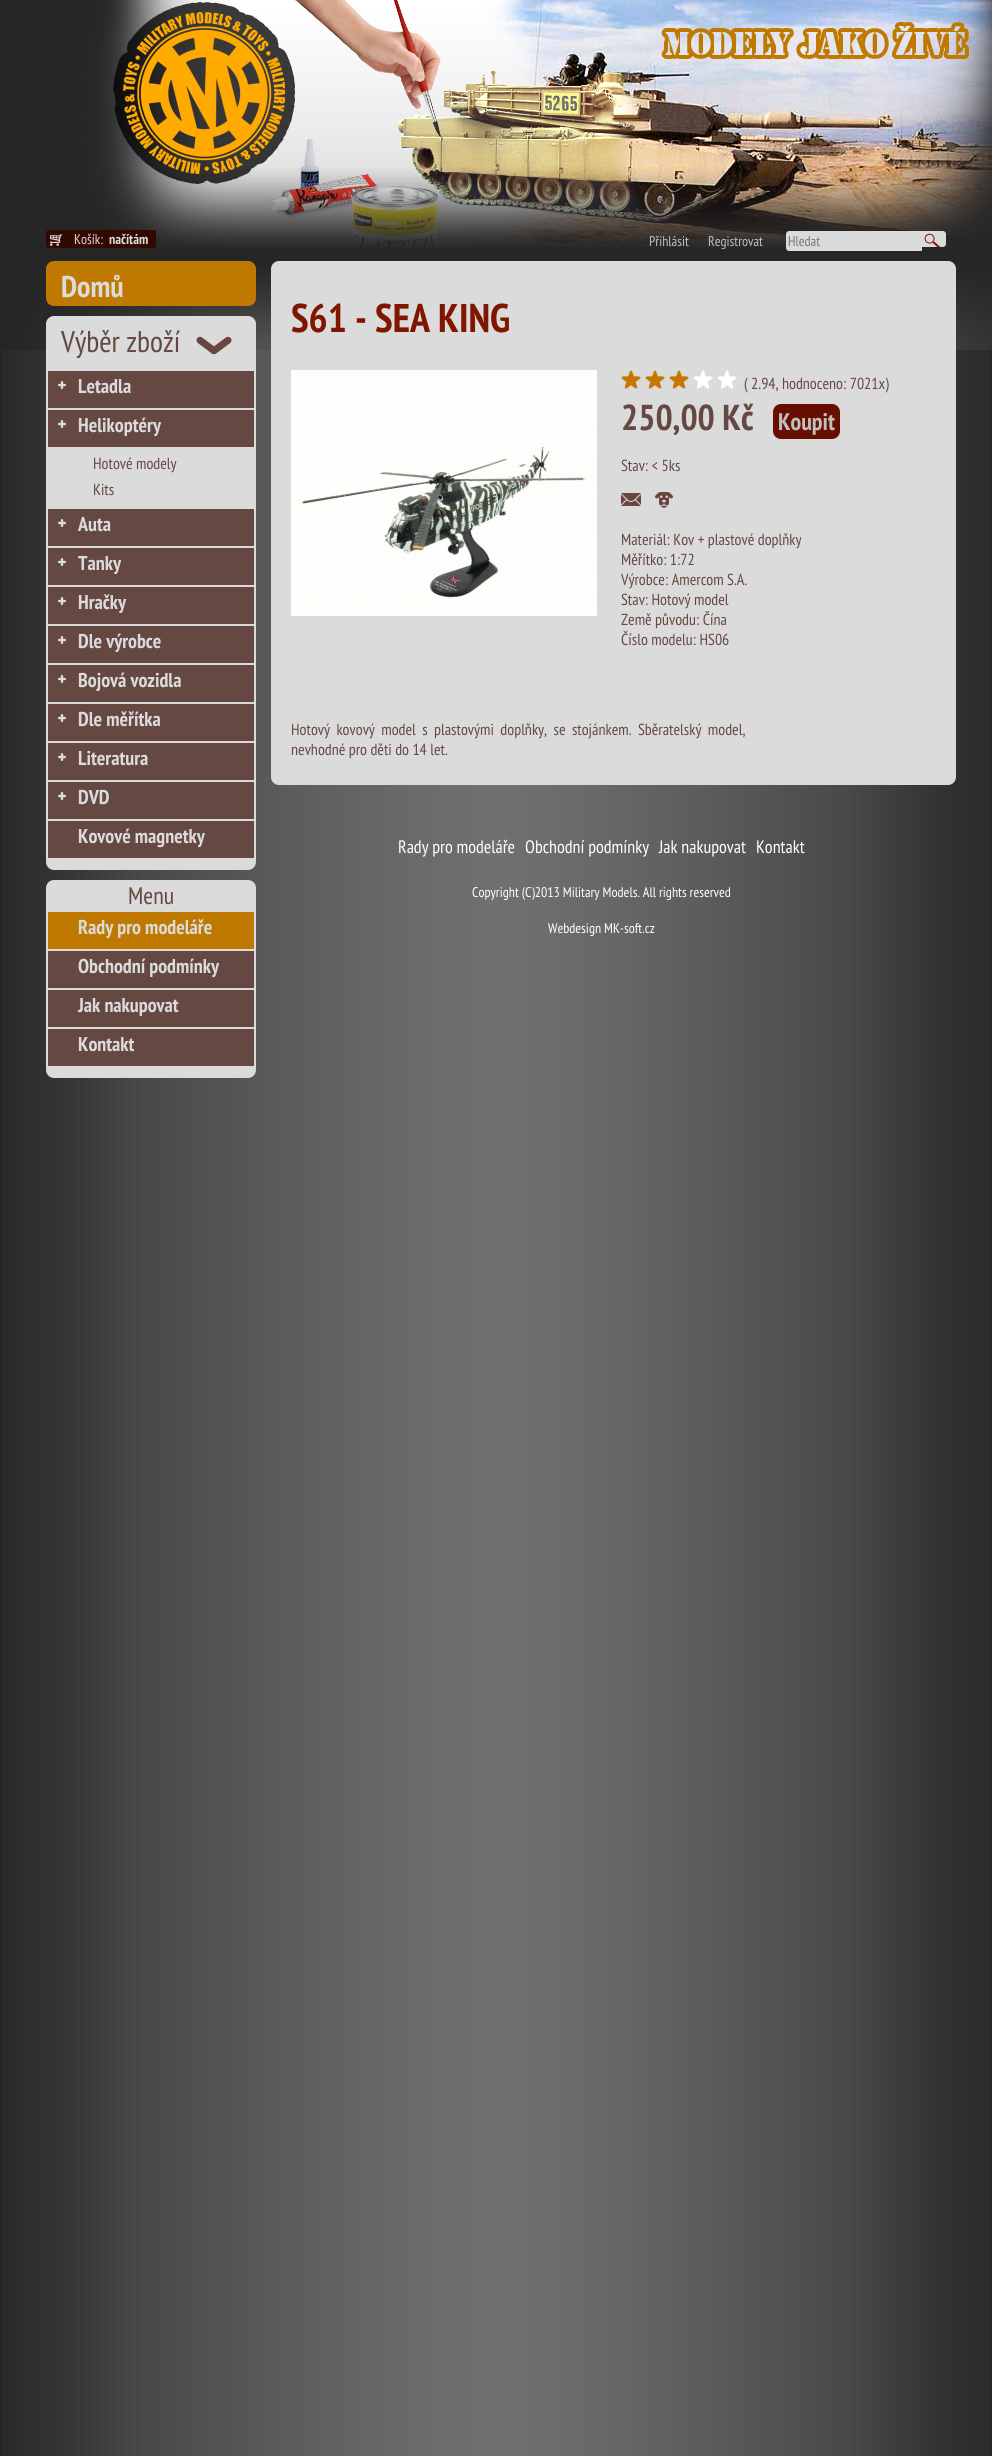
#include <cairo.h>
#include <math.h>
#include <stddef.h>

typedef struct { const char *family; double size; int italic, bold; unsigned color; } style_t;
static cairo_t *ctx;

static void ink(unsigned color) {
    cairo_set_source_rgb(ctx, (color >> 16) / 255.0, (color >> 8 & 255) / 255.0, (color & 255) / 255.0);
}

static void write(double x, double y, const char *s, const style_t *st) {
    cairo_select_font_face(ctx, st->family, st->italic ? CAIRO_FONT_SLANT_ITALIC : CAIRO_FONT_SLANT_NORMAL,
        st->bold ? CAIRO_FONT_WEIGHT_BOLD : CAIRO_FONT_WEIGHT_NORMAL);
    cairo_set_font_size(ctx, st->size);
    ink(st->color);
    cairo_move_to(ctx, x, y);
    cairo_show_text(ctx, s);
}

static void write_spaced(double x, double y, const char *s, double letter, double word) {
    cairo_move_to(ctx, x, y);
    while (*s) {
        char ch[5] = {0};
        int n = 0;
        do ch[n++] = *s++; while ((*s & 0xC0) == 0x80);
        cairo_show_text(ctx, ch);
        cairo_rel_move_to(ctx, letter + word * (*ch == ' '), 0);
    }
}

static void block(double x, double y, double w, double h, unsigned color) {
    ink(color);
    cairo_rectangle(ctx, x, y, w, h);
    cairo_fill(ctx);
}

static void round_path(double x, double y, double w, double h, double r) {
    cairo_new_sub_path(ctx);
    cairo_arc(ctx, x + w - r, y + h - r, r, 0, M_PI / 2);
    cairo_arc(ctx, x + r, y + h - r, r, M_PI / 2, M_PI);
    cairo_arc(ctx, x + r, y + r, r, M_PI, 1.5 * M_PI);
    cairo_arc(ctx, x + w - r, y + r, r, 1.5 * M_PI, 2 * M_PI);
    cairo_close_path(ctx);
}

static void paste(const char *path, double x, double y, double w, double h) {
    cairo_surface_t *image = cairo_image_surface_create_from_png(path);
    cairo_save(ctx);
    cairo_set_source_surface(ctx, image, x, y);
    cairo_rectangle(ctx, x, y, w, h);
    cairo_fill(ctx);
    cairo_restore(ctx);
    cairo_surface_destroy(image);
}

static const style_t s1 = {"PT Sans Narrow", 14, 0, 0, 0xdbdbdb};
static const style_t s2 = {"PT Sans Narrow", 14, 0, 1, 0xdbdbdb};
static const style_t s3 = {"PT Sans Narrow", 14, 0, 0, 0xbfbfbf};
static const style_t s4 = {"PT Sans Narrow", 14, 0, 0, 0x757575};
static const style_t s5 = {"PT Sans Narrow", 30, 0, 1, 0xdbdbdb};
static const style_t s6 = {"PT Sans Narrow", 30, 0, 0, 0x664842};
static const style_t s7 = {"PT Sans Narrow", 20, 0, 1, 0xdbdbdb};
static const style_t s8 = {"PT Sans Narrow", 16, 0, 0, 0x664842};
static const style_t s9 = {"PT Sans Narrow", 24, 0, 0, 0x664842};
static const style_t s10 = {"PT Sans Narrow", 40, 0, 1, 0x801500};
static const style_t s11 = {"PT Sans Narrow", 36, 0, 1, 0x664842};
static const style_t s12 = {"PT Sans Narrow", 24, 0, 1, 0xbfbfbf};
static const style_t s13 = {"PT Sans Narrow", 18, 0, 0, 0xffffff};
static const style_t s14 = {"PT Sans Narrow", 14, 0, 0, 0xffffff};

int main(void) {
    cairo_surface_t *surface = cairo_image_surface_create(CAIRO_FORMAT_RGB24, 992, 2456);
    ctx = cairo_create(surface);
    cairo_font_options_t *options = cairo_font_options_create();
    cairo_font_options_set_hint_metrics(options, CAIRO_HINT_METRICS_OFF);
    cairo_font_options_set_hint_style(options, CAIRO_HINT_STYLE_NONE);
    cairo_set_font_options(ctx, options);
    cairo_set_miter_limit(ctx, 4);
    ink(0x262626);
    cairo_paint(ctx);
    paste("pic1.png", 3, 350, 987, 2106);
    paste("pic2.png", 3, 0, 989, 350);
    ink(0x330800);
    round_path(46, 230, 110, 18, 3);
    cairo_fill(ctx);
    block(48, 230, 108, 18, 0x330800);
    paste("pic3.png", 50, 234, 13, 12);
    write(74, 244, "Košík:", &s1);
    write(109, 244, "načítám", &s2);
    write(649, 246, "Přihlásit", &s3);
    write(708, 246, "Registrovat", &s3);
    ink(0xdbdbdb);
    cairo_new_path(ctx);
    cairo_move_to(ctx, 789, 231);
    cairo_line_to(ctx, 922, 231);
    cairo_line_to(ctx, 922, 251);
    cairo_line_to(ctx, 789, 251);
    cairo_curve_to(ctx, 787.5, 251, 786, 249.5, 786, 248);
    cairo_line_to(ctx, 786, 234);
    cairo_curve_to(ctx, 786, 232.5, 787.5, 231, 789, 231);
    cairo_close_path(ctx);
    cairo_fill(ctx);
    cairo_new_path(ctx);
    cairo_move_to(ctx, 922, 231);
    cairo_line_to(ctx, 943, 231);
    cairo_curve_to(ctx, 944.5, 231, 946, 232.5, 946, 234);
    cairo_line_to(ctx, 946, 244);
    cairo_curve_to(ctx, 946, 245.5, 944.5, 247, 943, 247);
    cairo_line_to(ctx, 922, 247);
    cairo_close_path(ctx);
    cairo_fill(ctx);
    write(788, 246, "Hledat", &s4);
    paste("pic4.png", 924, 233, 17, 14);
    ink(0xbf7900);
    round_path(46, 261, 210, 45, 8);
    cairo_fill(ctx);
    write(61, 297, "Domů", &s5);
    round_path(46, 316, 210, 554, 8);
    cairo_fill(ctx);
    paste("pic5.png", 196, 336, 36, 19);
    write(61, 352, "Výběr zboží", &s6);
    block(48, 371, 206, 37, 0x664842);
    paste("pic6.png", 58, 381, 8, 8);
    write(78, 393, "Letadla", &s7);
    block(48, 410, 206, 37, 0x664842);
    paste("pic6.png", 58, 420, 8, 8);
    write(78, 432, "Helikoptéry", &s7);
    write(93, 469, "Hotové modely", &s8);
    write(93, 495, "Kits", &s8);
    block(48, 509, 206, 37, 0x664842);
    paste("pic6.png", 58, 519, 8, 8);
    write(78, 531, "Auta", &s7);
    block(48, 548, 206, 37, 0x664842);
    paste("pic6.png", 58, 558, 8, 8);
    write(78, 570, "Tanky", &s7);
    block(48, 587, 206, 37, 0x664842);
    paste("pic6.png", 58, 597, 8, 8);
    write(78, 609, "Hračky", &s7);
    block(48, 626, 206, 37, 0x664842);
    paste("pic6.png", 58, 636, 8, 8);
    write(78, 648, "Dle výrobce", &s7);
    block(48, 665, 206, 37, 0x664842);
    paste("pic6.png", 58, 675, 8, 8);
    write(78, 687, "Bojová vozidla", &s7);
    block(48, 704, 206, 37, 0x664842);
    paste("pic6.png", 58, 714, 8, 8);
    write(78, 726, "Dle měřítka", &s7);
    block(48, 743, 206, 37, 0x664842);
    paste("pic6.png", 58, 753, 8, 8);
    write(78, 765, "Literatura", &s7);
    block(48, 782, 206, 37, 0x664842);
    paste("pic6.png", 58, 792, 8, 8);
    write(78, 804, "DVD", &s7);
    block(48, 821, 206, 37, 0x664842);
    write(78, 843, "Kovové magnetky", &s7);
    round_path(46, 880, 210, 198, 8);
    cairo_fill(ctx);
    write(128, 904, "Menu", &s9);
    block(48, 912, 206, 37, 0xbf7900);
    write(78, 934, "Rady pro modeláře", &s7);
    block(48, 951, 206, 37, 0x664842);
    write(78, 973, "Obchodní podmínky", &s7);
    block(48, 990, 206, 37, 0x664842);
    write(78, 1012, "Jak nakupovat", &s7);
    block(48, 1029, 206, 37, 0x664842);
    write(78, 1051, "Kontakt", &s7);
    round_path(271, 261, 685, 524, 8);
    cairo_fill(ctx);
    write(291, 332, "S61 - SEA KING", &s10);
    paste("pic7.png", 291, 370, 306, 246);
    paste("pic8.png", 621, 370, 20, 19);
    paste("pic8.png", 645, 370, 20, 19);
    paste("pic8.png", 669, 370, 20, 19);
    paste("pic9.png", 693, 370, 20, 19);
    paste("pic9.png", 717, 370, 20, 19);
    write(744, 389, "( 2.94, hodnoceno: 7021x)", &s8);
    write(621, 430, "250,00 Kč", &s11);
    ink(0x660f00);
    round_path(773, 404, 67, 35, 8);
    cairo_fill(ctx);
    write(778, 430, "Koupit", &s12);
    write(621, 471, "Stav: < 5ks", &s8);
    paste("pic10.png", 621, 493, 20, 13);
    paste("pic11.png", 655, 492, 18, 16);
    write(621, 545, "Materiál: Kov + plastové doplňky", &s8);
    write(621, 565, "Měřítko: 1:72", &s8);
    write(621, 585, "Výrobce: Amercom S.A.", &s8);
    write(621, 605, "Stav: Hotový model", &s8);
    write(621, 625, "Země původu: Čína", &s8);
    write(621, 645, "Číslo modelu: HS06", &s8);
    write_spaced(291, 735, "Hotový kovový model s plastovými doplňky, se stojánkem. Sběratelský model,", 0, 3);
    write(291, 755, "nevhodné pro děti do 14 let.", &s8);
    write(398, 853, "Rady pro modeláře", &s13);
    write(525, 853, "Obchodní podmínky", &s13);
    write(659, 853, "Jak nakupovat", &s13);
    write(756, 853, "Kontakt", &s13);
    write(472, 897, "Copyright (C)2013 Military Models. All rights reserved", &s14);
    write(548, 933, "Webdesign MK-soft.cz", &s14);
    cairo_surface_write_to_png(surface, "screenshot.png");
    cairo_font_options_destroy(options);
    cairo_destroy(ctx);
    cairo_surface_destroy(surface);
    return 0;
}
